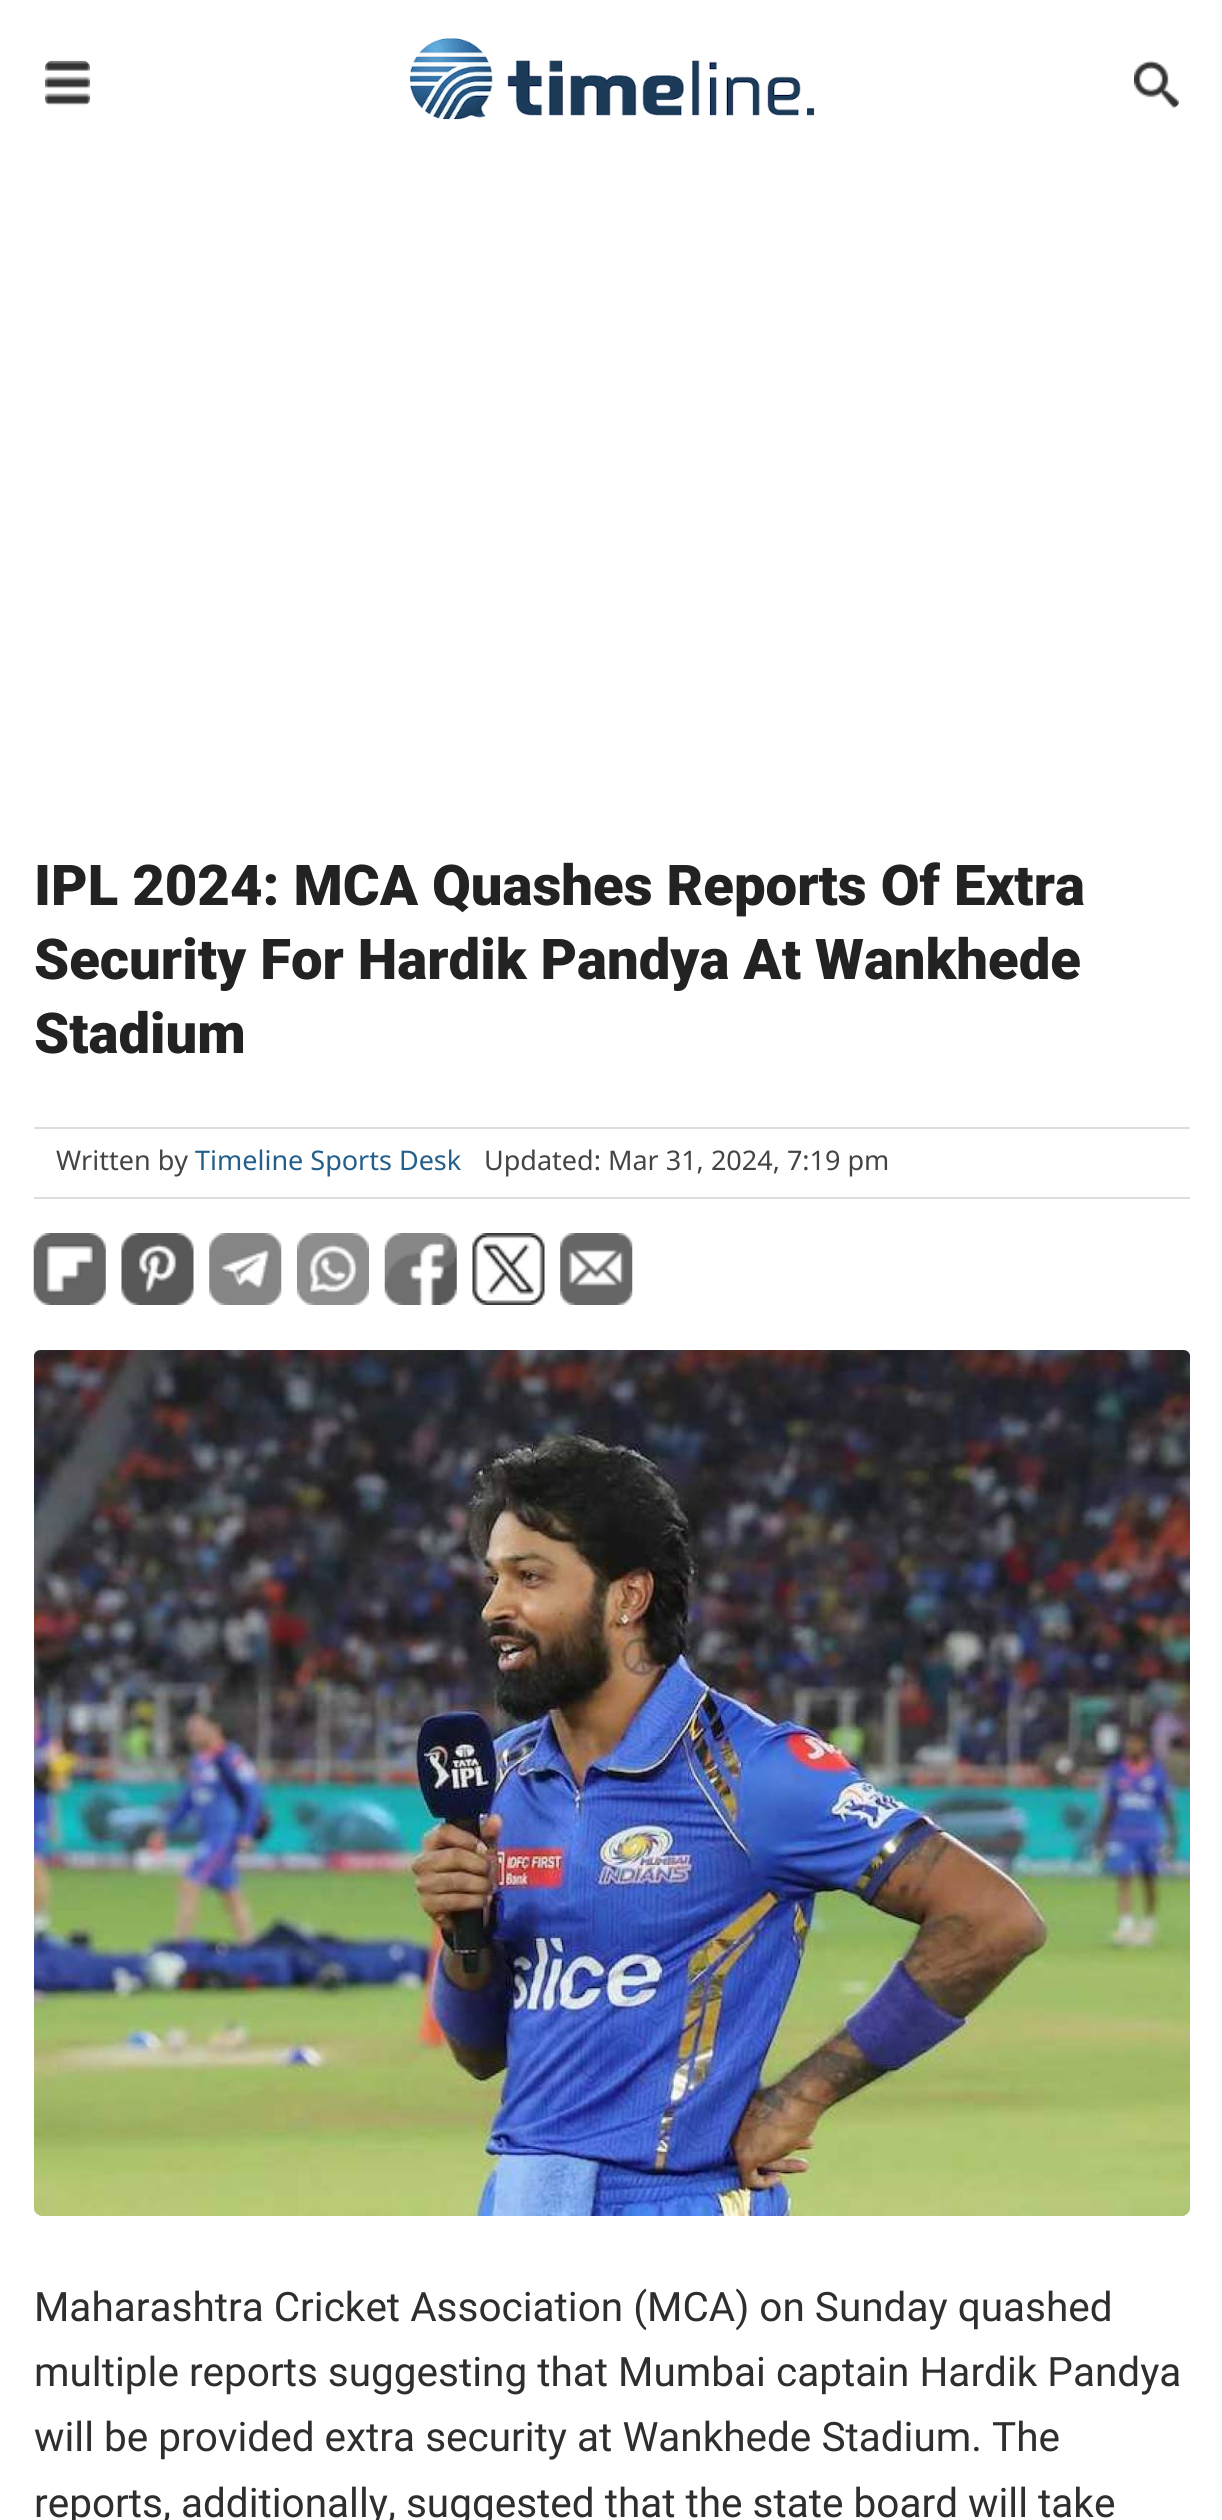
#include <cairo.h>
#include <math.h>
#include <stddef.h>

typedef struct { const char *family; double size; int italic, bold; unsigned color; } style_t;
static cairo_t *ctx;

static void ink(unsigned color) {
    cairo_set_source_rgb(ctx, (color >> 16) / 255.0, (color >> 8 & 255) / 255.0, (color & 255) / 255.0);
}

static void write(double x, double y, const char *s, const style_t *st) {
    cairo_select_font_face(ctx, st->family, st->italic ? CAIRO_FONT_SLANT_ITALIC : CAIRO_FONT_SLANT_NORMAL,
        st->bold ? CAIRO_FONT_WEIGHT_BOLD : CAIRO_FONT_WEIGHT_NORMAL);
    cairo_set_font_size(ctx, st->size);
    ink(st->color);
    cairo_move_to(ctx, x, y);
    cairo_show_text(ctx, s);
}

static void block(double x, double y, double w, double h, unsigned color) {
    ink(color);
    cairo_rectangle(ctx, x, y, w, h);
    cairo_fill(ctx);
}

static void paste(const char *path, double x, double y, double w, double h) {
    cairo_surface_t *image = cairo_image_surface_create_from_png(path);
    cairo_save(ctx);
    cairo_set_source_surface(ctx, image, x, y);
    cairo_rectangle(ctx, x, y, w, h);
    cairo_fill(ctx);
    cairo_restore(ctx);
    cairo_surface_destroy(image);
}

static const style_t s1 = {"Roboto Black", 56.25, 0, 0, 0x222222};
static const style_t s2 = {"Noto Sans", 27, 0, 0, 0x444444};
static const style_t s3 = {"Noto Sans", 27, 0, 0, 0x245e8a};
static const style_t s4 = {"Roboto", 40.5, 0, 0, 0x2e2e2e};

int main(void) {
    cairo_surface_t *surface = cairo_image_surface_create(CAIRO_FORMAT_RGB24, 1222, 2520);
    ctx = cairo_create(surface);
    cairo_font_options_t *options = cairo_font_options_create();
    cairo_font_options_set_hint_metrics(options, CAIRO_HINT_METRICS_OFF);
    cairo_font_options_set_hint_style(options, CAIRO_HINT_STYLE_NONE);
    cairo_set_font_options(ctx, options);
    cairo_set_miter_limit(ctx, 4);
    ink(0xffffff);
    cairo_paint(ctx);
    paste("pic1.png", 45, 60, 45, 46);
    paste("pic2.png", 409, 38, 406, 82);
    paste("pic3.png", 1134, 61, 45, 47);
    write(34, 905, "IPL 2024: MCA Quashes Reports Of Extra", &s1);
    write(34, 979, "Security For Hardik Pandya At Wankhede", &s1);
    write(34, 1053, "Stadium", &s1);
    block(34, 1127, 1156, 2, 0xdddddd);
    block(34, 1197, 1156, 2, 0xdddddd);
    write(56, 1170, "Written by", &s2);
    write(195, 1170, "Timeline Sports Desk", &s3);
    write(484, 1170, "Updated: Mar 31, 2024, 7:19 pm", &s2);
    paste("pic4.png", 33, 1233, 73, 72);
    paste("pic5.png", 121, 1233, 73, 72);
    paste("pic6.png", 209, 1233, 73, 72);
    paste("pic7.png", 297, 1233, 72, 72);
    paste("pic8.png", 384, 1233, 73, 72);
    paste("pic9.png", 472, 1233, 73, 72);
    paste("pic10.png", 560, 1233, 73, 72);
    ink(0xeeeeee);
    cairo_new_path(ctx);
    cairo_move_to(ctx, 34, 1350);
    cairo_line_to(ctx, 1190, 1350);
    cairo_line_to(ctx, 1190, 2207);
    cairo_curve_to(ctx, 1190, 2212, 1186, 2216, 1181, 2216);
    cairo_line_to(ctx, 43, 2216);
    cairo_curve_to(ctx, 38, 2216, 34, 2212, 34, 2207);
    cairo_close_path(ctx);
    cairo_fill(ctx);
    paste("pic11.png", 34, 1350, 1156, 866);
    write(34, 2321, "Maharashtra Cricket Association (MCA) on Sunday quashed", &s4);
    write(34, 2386, "multiple reports suggesting that Mumbai captain Hardik Pandya", &s4);
    write(34, 2451, "will be provided extra security at Wankhede Stadium. The", &s4);
    write(34, 2517, "reports, additionally, suggested that the state board will take", &s4);
    cairo_surface_write_to_png(surface, "screenshot.png");
    cairo_font_options_destroy(options);
    cairo_destroy(ctx);
    cairo_surface_destroy(surface);
    return 0;
}
